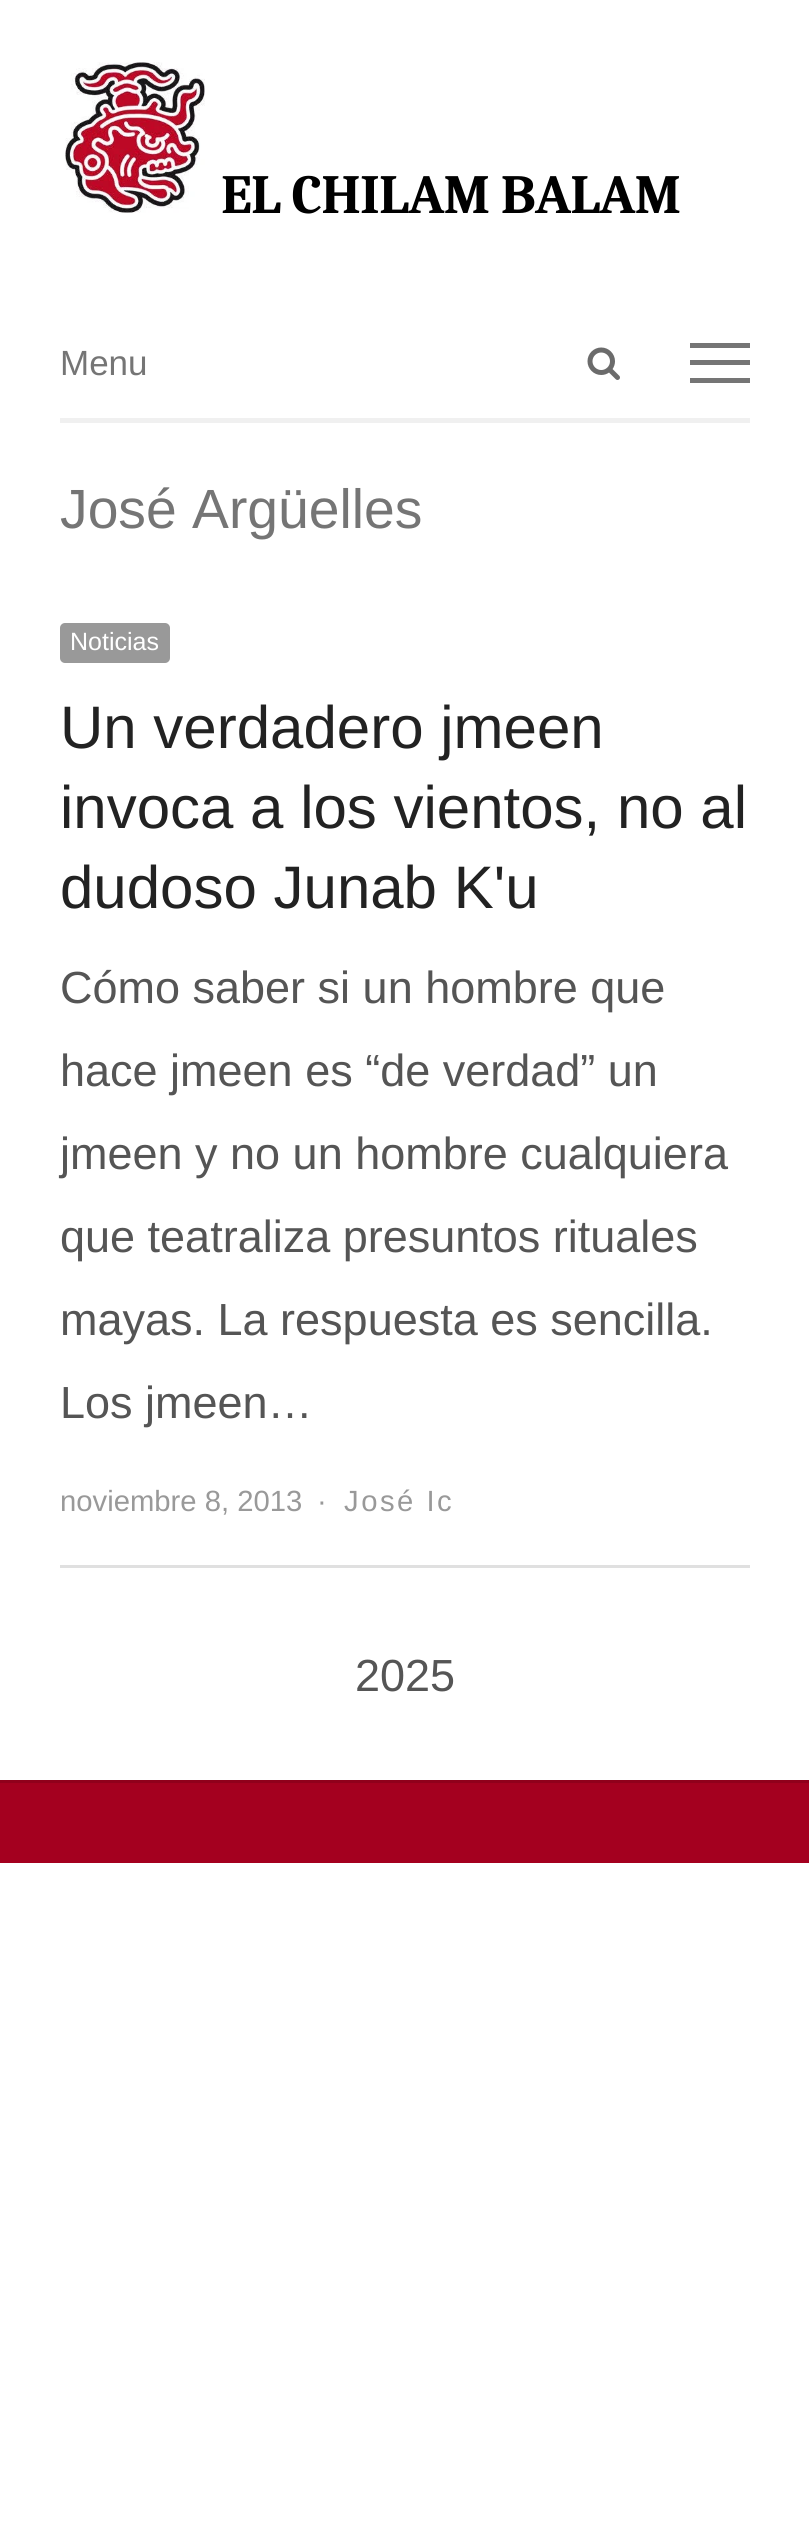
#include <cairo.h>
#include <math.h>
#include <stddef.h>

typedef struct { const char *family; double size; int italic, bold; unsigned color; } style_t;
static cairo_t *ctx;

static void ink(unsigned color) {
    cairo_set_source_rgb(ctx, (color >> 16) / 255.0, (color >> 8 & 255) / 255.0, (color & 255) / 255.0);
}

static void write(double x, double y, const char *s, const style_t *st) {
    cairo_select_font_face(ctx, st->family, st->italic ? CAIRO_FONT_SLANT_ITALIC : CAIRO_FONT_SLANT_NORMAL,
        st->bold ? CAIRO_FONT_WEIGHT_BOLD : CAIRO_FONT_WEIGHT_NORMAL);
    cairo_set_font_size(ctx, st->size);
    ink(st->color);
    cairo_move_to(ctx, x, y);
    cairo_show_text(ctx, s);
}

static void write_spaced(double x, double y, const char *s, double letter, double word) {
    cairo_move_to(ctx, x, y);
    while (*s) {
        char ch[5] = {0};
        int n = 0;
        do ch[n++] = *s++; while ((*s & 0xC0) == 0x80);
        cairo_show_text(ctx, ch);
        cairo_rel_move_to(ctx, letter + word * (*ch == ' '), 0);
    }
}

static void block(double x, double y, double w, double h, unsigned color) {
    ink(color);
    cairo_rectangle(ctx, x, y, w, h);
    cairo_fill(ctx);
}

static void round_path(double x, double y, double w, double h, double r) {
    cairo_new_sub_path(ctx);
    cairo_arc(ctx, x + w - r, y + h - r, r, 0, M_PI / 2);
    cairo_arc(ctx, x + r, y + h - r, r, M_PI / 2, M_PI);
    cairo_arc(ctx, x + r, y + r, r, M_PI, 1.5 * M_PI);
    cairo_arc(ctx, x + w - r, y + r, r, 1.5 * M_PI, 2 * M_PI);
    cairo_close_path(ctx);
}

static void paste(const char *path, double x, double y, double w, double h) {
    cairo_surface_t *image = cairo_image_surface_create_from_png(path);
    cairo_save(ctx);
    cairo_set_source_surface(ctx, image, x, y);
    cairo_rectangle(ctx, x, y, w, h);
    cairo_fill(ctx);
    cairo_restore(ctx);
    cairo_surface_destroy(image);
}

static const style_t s1 = {"Liberation Sans", 35, 0, 0, 0x757575};
static const style_t s2 = {"Liberation Sans", 55.25, 0, 0, 0x757575};
static const style_t s3 = {"Liberation Sans", 25, 0, 0, 0xffffff};
static const style_t s4 = {"Liberation Sans", 60, 0, 0, 0x222222};
static const style_t s5 = {"Liberation Sans", 45, 0, 0, 0x555555};
static const style_t s6 = {"Liberation Sans", 29.25, 0, 0, 0x999999};

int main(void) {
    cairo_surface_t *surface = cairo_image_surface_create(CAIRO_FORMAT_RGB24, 809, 2521);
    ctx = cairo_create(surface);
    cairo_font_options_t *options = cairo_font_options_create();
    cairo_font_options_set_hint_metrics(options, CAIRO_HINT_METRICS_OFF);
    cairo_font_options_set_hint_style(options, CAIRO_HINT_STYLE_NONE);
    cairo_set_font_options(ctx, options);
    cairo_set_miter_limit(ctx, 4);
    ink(0xffffff);
    cairo_paint(ctx);
    paste("pic1.png", 65, 62, 140, 151);
    cairo_select_font_face(ctx, "Caladea", CAIRO_FONT_SLANT_NORMAL, CAIRO_FONT_WEIGHT_BOLD);
    cairo_set_font_size(ctx, 55.25);
    ink(0x000000);
    write_spaced(221, 213, "EL CHILAM BALAM", -0.8, 0);
    block(60, 418, 690, 5, 0xf0f0f0);
    write(60, 375, "Menu", &s1);
    block(690, 343, 60, 5, 0x757575);
    block(690, 360, 60, 5, 0x757575);
    block(690, 378, 60, 5, 0x757575);
    paste("pic2.png", 587, 347, 33, 33);
    write(60, 528, "José Argüelles", &s2);
    ink(0x999999);
    round_path(60, 623, 110, 40, 5);
    cairo_fill(ctx);
    write(70, 650, "Noticias", &s3);
    write(60, 748, "Un verdadero jmeen", &s4);
    write(60, 828, "invoca a los vientos, no al", &s4);
    write(60, 908, "dudoso Junab K'u", &s4);
    write(60, 1003, "Cómo saber si un hombre que", &s5);
    write(60, 1086, "hace jmeen es “de verdad” un", &s5);
    write(60, 1169, "jmeen y no un hombre cualquiera", &s5);
    write(60, 1252, "que teatraliza presuntos rituales", &s5);
    write(60, 1335, "mayas. La respuesta es sencilla.", &s5);
    write(60, 1418, "Los jmeen…", &s5);
    write(60, 1511, "noviembre 8, 2013", &s6);
    write_spaced(317, 1511, "·", 2.5, 0);
    write_spaced(344, 1511, "José Ic", 2.5, 0);
    block(60, 1565, 690, 3, 0xe0e0e0);
    write(355, 1691, "2025", &s5);
    block(0, 1783, 809, 80, 0xa4001f);
    block(0, 1780, 809, 3, 0x90001b);
    cairo_surface_write_to_png(surface, "screenshot.png");
    cairo_font_options_destroy(options);
    cairo_destroy(ctx);
    cairo_surface_destroy(surface);
    return 0;
}
